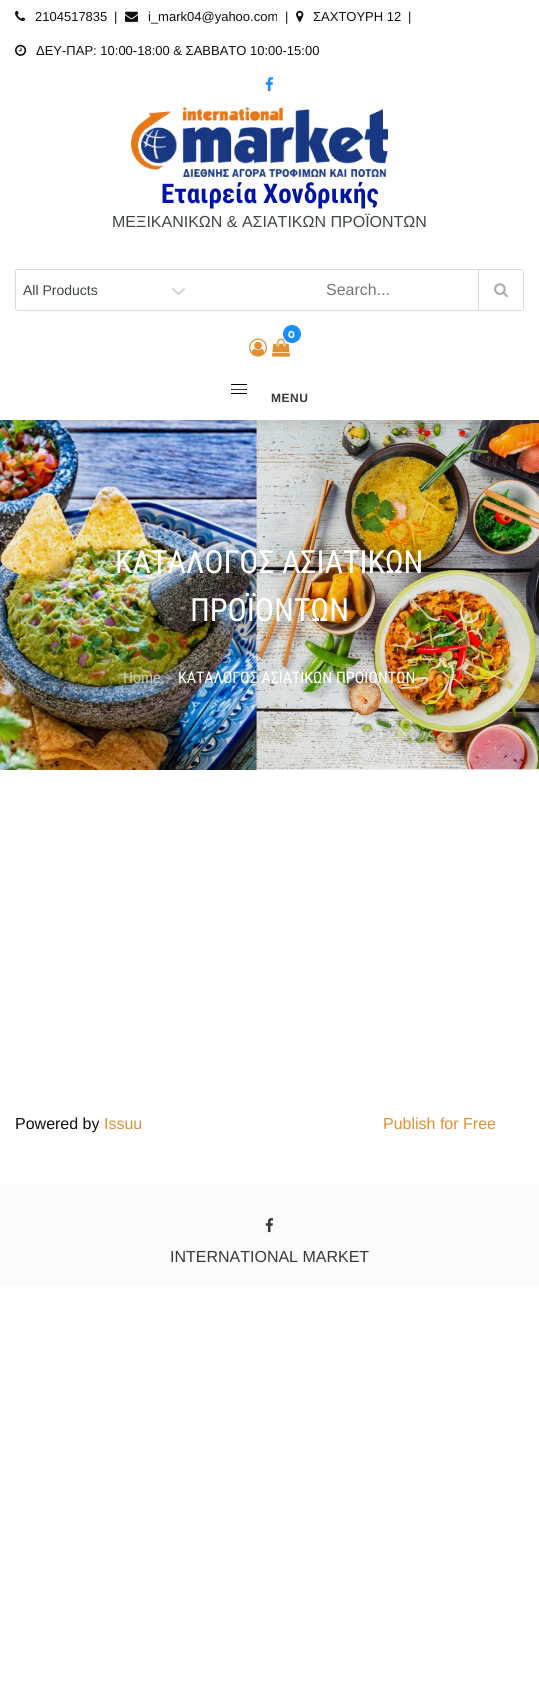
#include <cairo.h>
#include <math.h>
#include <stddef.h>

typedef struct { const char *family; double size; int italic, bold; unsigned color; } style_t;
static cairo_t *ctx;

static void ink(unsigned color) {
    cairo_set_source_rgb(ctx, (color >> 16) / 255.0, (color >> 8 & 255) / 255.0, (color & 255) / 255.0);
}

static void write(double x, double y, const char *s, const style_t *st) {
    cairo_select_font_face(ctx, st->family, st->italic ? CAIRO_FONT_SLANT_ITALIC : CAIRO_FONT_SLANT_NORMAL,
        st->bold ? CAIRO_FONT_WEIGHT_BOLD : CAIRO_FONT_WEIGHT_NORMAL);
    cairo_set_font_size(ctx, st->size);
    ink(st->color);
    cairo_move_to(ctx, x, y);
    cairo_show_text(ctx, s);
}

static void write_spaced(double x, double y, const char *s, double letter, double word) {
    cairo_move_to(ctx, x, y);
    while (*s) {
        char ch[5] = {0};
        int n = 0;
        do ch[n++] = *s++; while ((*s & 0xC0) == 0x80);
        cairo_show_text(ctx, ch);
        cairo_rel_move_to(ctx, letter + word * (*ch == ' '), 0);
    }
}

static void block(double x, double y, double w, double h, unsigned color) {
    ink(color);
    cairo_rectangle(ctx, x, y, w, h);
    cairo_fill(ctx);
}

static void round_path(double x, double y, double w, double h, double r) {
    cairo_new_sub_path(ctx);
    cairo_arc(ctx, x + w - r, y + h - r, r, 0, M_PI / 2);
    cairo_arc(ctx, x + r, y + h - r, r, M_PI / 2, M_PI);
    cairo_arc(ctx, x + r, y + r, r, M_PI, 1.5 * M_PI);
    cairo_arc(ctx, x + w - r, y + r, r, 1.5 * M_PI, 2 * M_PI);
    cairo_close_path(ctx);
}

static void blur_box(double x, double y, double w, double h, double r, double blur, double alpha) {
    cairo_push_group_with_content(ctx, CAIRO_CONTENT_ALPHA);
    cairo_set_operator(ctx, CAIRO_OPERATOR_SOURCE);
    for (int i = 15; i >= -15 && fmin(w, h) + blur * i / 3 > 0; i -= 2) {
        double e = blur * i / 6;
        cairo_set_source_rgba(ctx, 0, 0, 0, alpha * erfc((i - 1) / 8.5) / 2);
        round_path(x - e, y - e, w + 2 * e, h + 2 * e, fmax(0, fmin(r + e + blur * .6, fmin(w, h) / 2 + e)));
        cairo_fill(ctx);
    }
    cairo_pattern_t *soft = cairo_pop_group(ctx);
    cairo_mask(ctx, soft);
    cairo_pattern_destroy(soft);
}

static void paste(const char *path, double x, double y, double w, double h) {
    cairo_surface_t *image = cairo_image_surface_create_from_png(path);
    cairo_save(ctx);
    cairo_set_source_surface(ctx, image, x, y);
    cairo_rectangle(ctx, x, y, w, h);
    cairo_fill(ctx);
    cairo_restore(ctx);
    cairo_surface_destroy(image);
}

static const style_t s1 = {"Liberation Sans", 13, 0, 0, 0x0f0f0f};
static const style_t s2 = {"Roboto Condensed", 27, 0, 1, 0x0015a3};
static const style_t s3 = {"Liberation Sans", 16, 0, 0, 0x3f444d};
static const style_t s4 = {"Liberation Sans", 14, 0, 0, 0x3f444d};
static const style_t s5 = {"Liberation Sans", 16, 0, 0, 0x757575};
static const style_t s6 = {"Montserrat", 10, 0, 1, 0xffffff};
static const style_t s7 = {"Roboto Condensed", 32, 0, 0, 0xffffff};
static const style_t s8 = {"Roboto Condensed", 16, 0, 0, 0xc7c8b2};
static const style_t s9 = {"Roboto Condensed", 16, 0, 0, 0x999b9b};
static const style_t s10 = {"Roboto Condensed", 16, 0, 0, 0xffffff};
static const style_t s11 = {"Liberation Sans", 16, 0, 0, 0x0f0f0f};
static const style_t s12 = {"Liberation Sans", 16, 0, 0, 0xe08f33};
static const style_t s13 = {"Liberation Sans", 16, 0, 0, 0x373737};

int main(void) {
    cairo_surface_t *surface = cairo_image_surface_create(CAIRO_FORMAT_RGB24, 539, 1701);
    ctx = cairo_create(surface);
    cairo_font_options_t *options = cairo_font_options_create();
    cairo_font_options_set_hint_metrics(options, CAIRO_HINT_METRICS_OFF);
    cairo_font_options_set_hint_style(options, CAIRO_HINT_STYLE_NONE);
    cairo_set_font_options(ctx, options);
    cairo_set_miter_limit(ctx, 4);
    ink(0xffffff);
    cairo_paint(ctx);
    paste("pic11.png", 0, 420, 539, 350);
    cairo_save(ctx);
    cairo_rectangle(ctx, 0, 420, 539, 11);
    cairo_clip(ctx);
    ink(0x828282);
    blur_box(3, 12, 533, 414, 0, 4, 0.18);
    cairo_restore(ctx);
    paste("pic1.png", 15, 10, 11, 11);
    write(35, 21, "2104517835", &s1);
    write(114, 21, "|", &s1);
    paste("pic2.png", 125, 11, 13, 11);
    write(148, 21, "i_mark04@yahoo.com", &s1);
    write(285, 21, "|", &s1);
    paste("pic3.png", 296, 10, 8, 12);
    write(313, 21, "ΣΑΧΤΟΥΡΗ 12", &s1);
    write(408, 21, "|", &s1);
    paste("pic4.png", 15, 44, 12, 12);
    write(36, 55, "ΔΕΥ-ΠΑΡ: 10:00-18:00 & ΣΑΒΒΑΤΟ 10:00-15:00", &s1);
    paste("pic5.png", 265, 77, 9, 15);
    paste("pic6.png", 131, 107, 257, 70);
    write(161, 203, "Εταιρεία Χονδρικής", &s2);
    write(112, 227, "ΜΕΞΙΚΑΝΙΚΩΝ & ΑΣΙΑΤΙΚΩΝ ΠΡΟΪΟΝΤΩΝ", &s3);
    round_path(15.5, 269.5, 508, 41, 2.5);
    ink(0xd9d9d9);
    cairo_set_line_width(ctx, 1);
    cairo_stroke(ctx);
    paste("pic7.png", 172, 288, 13, 7);
    write(23, 295, "All Products", &s4);
    block(521, 270, 2, 40, 0xffffff);
    write(326, 295, "Search...", &s5);
    block(478, 270, 1, 40, 0xd9d9d9);
    paste("pic8.png", 494, 283, 14, 15);
    paste("pic9.png", 272, 338, 18, 19);
    ink(0x178dff);
    cairo_arc(ctx, 292, 334, 9, 0, 2 * M_PI);
    cairo_fill(ctx);
    write(288, 338, "0", &s6);
    paste("pic10.png", 249, 338, 18, 19);
    block(231, 384, 16, 1, 0x000000);
    block(231, 389, 16, 1, 0x333333);
    block(231, 393, 16, 1, 0x000000);
    cairo_select_font_face(ctx, "Liberation Sans", CAIRO_FONT_SLANT_NORMAL, CAIRO_FONT_WEIGHT_BOLD);
    cairo_set_font_size(ctx, 12);
    ink(0x373737);
    write_spaced(271, 402, "MENU", 0.5, 0);
    write(115, 573, "ΚΑΤΑΛΟΓΟΣ ΑΣΙΑΤΙΚΩΝ", &s7);
    write(190, 621, "ΠΡΟΪΟΝΤΩΝ", &s7);
    write(123, 683, "Home", &s8);
    write(166, 683, ">", &s9);
    write(178, 683, "ΚΑΤΑΛΟΓΟΣ ΑΣΙΑΤΙΚΩΝ ΠΡΟΪΟΝΤΩΝ", &s10);
    write(15, 1129, "Powered by", &s11);
    write(104, 1129, "Issuu", &s12);
    write(383, 1129, "Publish for Free", &s12);
    block(0, 1184, 539, 102, 0xfbfbfb);
    paste("pic12.png", 265, 1218, 9, 15);
    write(170, 1262, "INTERNATIONAL MARKET", &s13);
    cairo_surface_write_to_png(surface, "screenshot.png");
    cairo_font_options_destroy(options);
    cairo_destroy(ctx);
    cairo_surface_destroy(surface);
    return 0;
}
